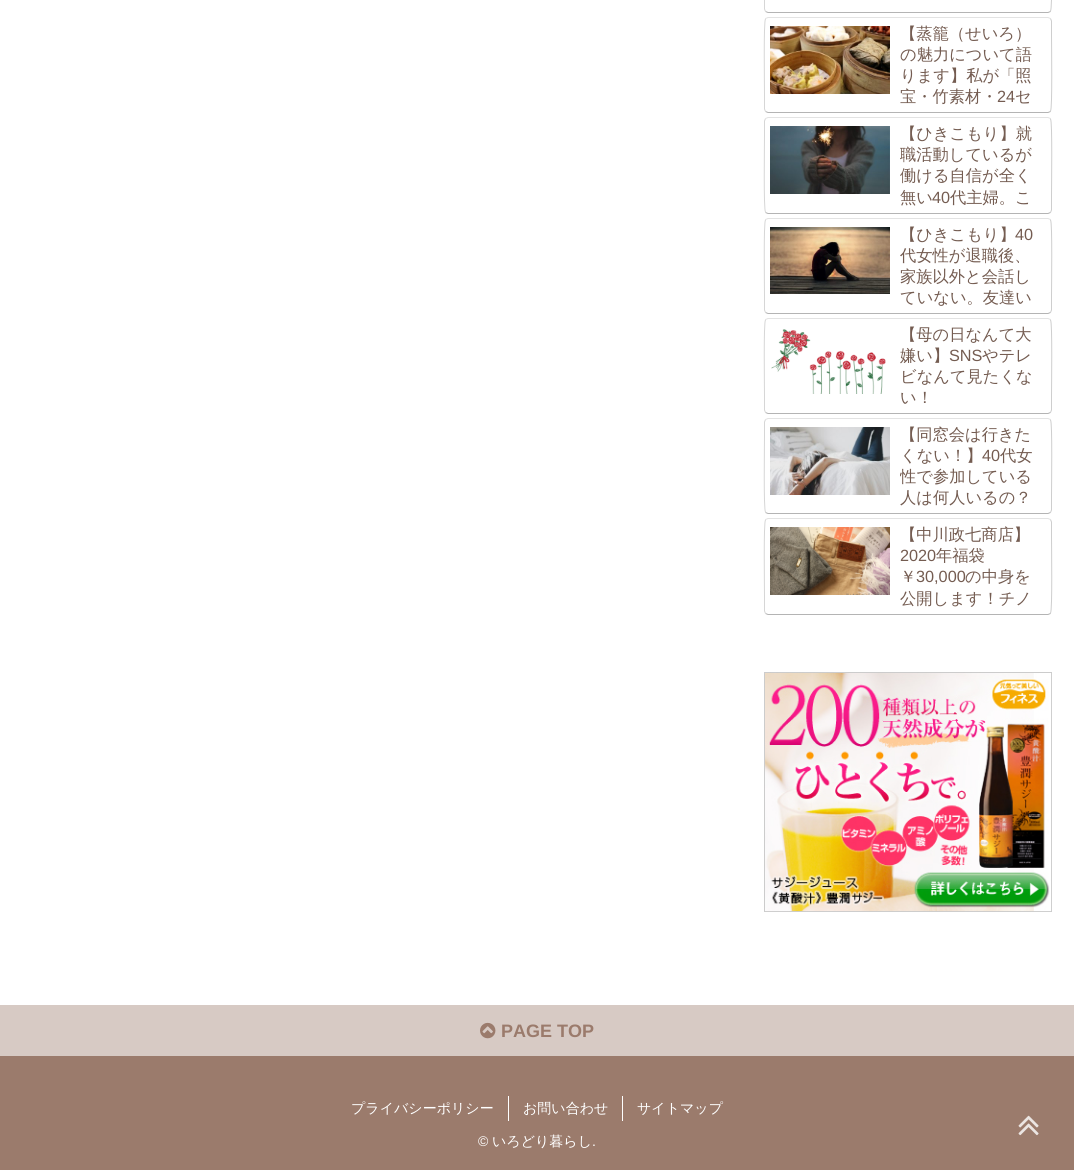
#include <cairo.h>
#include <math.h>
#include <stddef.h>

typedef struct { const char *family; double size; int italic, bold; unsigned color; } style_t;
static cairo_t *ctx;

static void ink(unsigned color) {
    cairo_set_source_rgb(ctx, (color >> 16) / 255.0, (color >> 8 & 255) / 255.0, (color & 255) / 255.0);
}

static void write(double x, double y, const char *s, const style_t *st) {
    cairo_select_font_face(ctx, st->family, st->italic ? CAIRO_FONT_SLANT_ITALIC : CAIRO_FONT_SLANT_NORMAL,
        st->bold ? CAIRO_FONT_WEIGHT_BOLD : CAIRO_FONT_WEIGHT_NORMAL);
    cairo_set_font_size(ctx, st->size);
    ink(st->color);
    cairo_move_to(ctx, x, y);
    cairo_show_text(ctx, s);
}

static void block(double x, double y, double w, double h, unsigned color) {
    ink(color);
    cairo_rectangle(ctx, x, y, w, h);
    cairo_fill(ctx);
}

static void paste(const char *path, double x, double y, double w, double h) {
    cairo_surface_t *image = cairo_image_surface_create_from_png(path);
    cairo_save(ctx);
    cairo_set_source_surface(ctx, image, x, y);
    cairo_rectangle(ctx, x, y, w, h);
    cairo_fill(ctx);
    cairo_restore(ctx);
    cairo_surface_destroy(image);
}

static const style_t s1 = {"WenQuanYi Zen Hei Medium", 16.25, 0, 0, 0x745c51};
static const style_t s2 = {"Liberation Sans", 16.25, 0, 0, 0x745c51};
static const style_t s3 = {"Liberation Sans", 18, 0, 1, 0x9b7b6c};
static const style_t s4 = {"WenQuanYi Zen Hei Medium", 14, 0, 0, 0xffffff};
static const style_t s5 = {"Liberation Sans", 14, 0, 0, 0xffffff};

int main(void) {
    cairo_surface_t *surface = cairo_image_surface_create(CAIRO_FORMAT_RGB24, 1074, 1170);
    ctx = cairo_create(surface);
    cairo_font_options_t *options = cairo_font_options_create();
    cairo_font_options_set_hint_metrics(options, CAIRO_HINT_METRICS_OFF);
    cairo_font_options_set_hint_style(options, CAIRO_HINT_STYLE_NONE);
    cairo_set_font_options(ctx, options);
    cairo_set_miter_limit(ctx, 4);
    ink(0xffffff);
    cairo_paint(ctx);
    cairo_new_path(ctx);
    cairo_move_to(ctx, 1050.5, -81.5);
    cairo_line_to(ctx, 1051.5, -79);
    cairo_line_to(ctx, 1051.5, -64.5);
    cairo_curve_to(ctx, 1051.5, -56, 1052.5, 9, 1050.5, 11);
    cairo_line_to(ctx, 1050.5, 11.5);
    ink(0xcecece);
    cairo_set_line_width(ctx, 1);
    cairo_stroke(ctx);
    cairo_new_path(ctx);
    cairo_move_to(ctx, 1050.5, 11.5);
    cairo_line_to(ctx, 1048, 12.5);
    cairo_line_to(ctx, 768, 12.5);
    cairo_line_to(ctx, 765.5, 11.5);
    ink(0xb4b4b4);
    cairo_stroke(ctx);
    cairo_new_path(ctx);
    cairo_move_to(ctx, 765.5, 11.5);
    cairo_line_to(ctx, 764.5, 9);
    cairo_line_to(ctx, 764.5, -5.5);
    cairo_curve_to(ctx, 764.5, -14, 763.5, -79, 765.5, -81);
    cairo_line_to(ctx, 765.5, -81.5);
    ink(0xd6d6d6);
    cairo_stroke(ctx);
    cairo_new_path(ctx);
    cairo_move_to(ctx, 765.5, 18.5);
    cairo_line_to(ctx, 768, 17.5);
    cairo_line_to(ctx, 1048, 17.5);
    cairo_line_to(ctx, 1050.5, 18.5);
    ink(0xe3e3e3);
    cairo_stroke(ctx);
    cairo_new_path(ctx);
    cairo_move_to(ctx, 1050.5, 18.5);
    cairo_line_to(ctx, 1051.5, 21);
    cairo_line_to(ctx, 1051.5, 35.5);
    cairo_curve_to(ctx, 1051.5, 44, 1052.5, 109, 1050.5, 111);
    cairo_line_to(ctx, 1050.5, 111.5);
    ink(0xcecece);
    cairo_stroke(ctx);
    cairo_new_path(ctx);
    cairo_move_to(ctx, 1050.5, 111.5);
    cairo_line_to(ctx, 1048, 112.5);
    cairo_line_to(ctx, 768, 112.5);
    cairo_line_to(ctx, 765.5, 111.5);
    ink(0xb4b4b4);
    cairo_stroke(ctx);
    cairo_new_path(ctx);
    cairo_move_to(ctx, 765.5, 111.5);
    cairo_line_to(ctx, 764.5, 109);
    cairo_line_to(ctx, 764.5, 94.5);
    cairo_curve_to(ctx, 764.5, 86, 763.5, 21, 765.5, 19);
    cairo_line_to(ctx, 765.5, 18.5);
    ink(0xd6d6d6);
    cairo_stroke(ctx);
    paste("pic1.png", 770, 26, 120, 68);
    write(900, 39, "【蒸籠（せいろ）", &s1);
    write(900, 60, "の魅力について語", &s1);
    write(900, 81, "ります】私が「照", &s1);
    write(900, 102, "宝・竹素材・", &s1);
    write(997, 102, "24", &s2);
    write(1015, 102, "セ", &s1);
    cairo_new_path(ctx);
    cairo_move_to(ctx, 765.5, 118.5);
    cairo_line_to(ctx, 768, 117.5);
    cairo_line_to(ctx, 1048, 117.5);
    cairo_line_to(ctx, 1050.5, 118.5);
    ink(0xe3e3e3);
    cairo_stroke(ctx);
    cairo_new_path(ctx);
    cairo_move_to(ctx, 1050.5, 118.5);
    cairo_line_to(ctx, 1050.5, 119);
    cairo_curve_to(ctx, 1052.5, 121, 1051.5, 186.5, 1051.5, 195);
    cairo_line_to(ctx, 1051.5, 210);
    cairo_line_to(ctx, 1050.5, 212.5);
    ink(0xcecece);
    cairo_stroke(ctx);
    cairo_new_path(ctx);
    cairo_move_to(ctx, 1050.5, 212.5);
    cairo_line_to(ctx, 1048, 213.5);
    cairo_line_to(ctx, 768, 213.5);
    cairo_line_to(ctx, 765.5, 212.5);
    ink(0xb4b4b4);
    cairo_stroke(ctx);
    cairo_new_path(ctx);
    cairo_move_to(ctx, 765.5, 212.5);
    cairo_line_to(ctx, 765.5, 212);
    cairo_curve_to(ctx, 763.5, 210, 764.5, 144.5, 764.5, 136);
    cairo_line_to(ctx, 764.5, 121);
    cairo_line_to(ctx, 765.5, 118.5);
    ink(0xd6d6d6);
    cairo_stroke(ctx);
    paste("pic2.png", 770, 126, 120, 68);
    write(900, 139, "【ひきこもり】就", &s1);
    write(900, 160, "職活動しているが", &s1);
    write(900, 181, "働ける自信が全く", &s1);
    write(900, 203, "無い", &s1);
    write(932, 203, "40", &s2);
    write(950, 203, "代主婦。こ", &s1);
    cairo_new_path(ctx);
    cairo_move_to(ctx, 765.5, 219.5);
    cairo_line_to(ctx, 768, 218.5);
    cairo_line_to(ctx, 1048, 218.5);
    cairo_line_to(ctx, 1050.5, 219.5);
    ink(0xe3e3e3);
    cairo_stroke(ctx);
    cairo_new_path(ctx);
    cairo_move_to(ctx, 1050.5, 219.5);
    cairo_line_to(ctx, 1050.5, 220);
    cairo_curve_to(ctx, 1052.5, 222, 1051.5, 287, 1051.5, 295.5);
    cairo_line_to(ctx, 1051.5, 310);
    cairo_line_to(ctx, 1050.5, 312.5);
    ink(0xcecece);
    cairo_stroke(ctx);
    cairo_new_path(ctx);
    cairo_move_to(ctx, 1050.5, 312.5);
    cairo_line_to(ctx, 1048, 313.5);
    cairo_line_to(ctx, 768, 313.5);
    cairo_line_to(ctx, 765.5, 312.5);
    ink(0xb4b4b4);
    cairo_stroke(ctx);
    cairo_new_path(ctx);
    cairo_move_to(ctx, 765.5, 312.5);
    cairo_line_to(ctx, 764.5, 310);
    cairo_line_to(ctx, 764.5, 295.5);
    cairo_curve_to(ctx, 764.5, 287, 763.5, 222, 765.5, 220);
    cairo_line_to(ctx, 765.5, 219.5);
    ink(0xd6d6d6);
    cairo_stroke(ctx);
    paste("pic3.png", 770, 227, 120, 67);
    write(900, 240, "【ひきこもり】", &s1);
    write(1015, 240, "40", &s2);
    write(900, 261, "代女性が退職後、", &s1);
    write(900, 282, "家族以外と会話し", &s1);
    write(900, 303, "ていない。友達い", &s1);
    cairo_new_path(ctx);
    cairo_move_to(ctx, 765.5, 319.5);
    cairo_line_to(ctx, 768, 318.5);
    cairo_line_to(ctx, 1048, 318.5);
    cairo_line_to(ctx, 1050.5, 319.5);
    ink(0xe3e3e3);
    cairo_stroke(ctx);
    cairo_new_path(ctx);
    cairo_move_to(ctx, 1050.5, 319.5);
    cairo_line_to(ctx, 1050.5, 320);
    cairo_curve_to(ctx, 1052.5, 322, 1051.5, 387, 1051.5, 395.5);
    cairo_line_to(ctx, 1051.5, 410);
    cairo_line_to(ctx, 1050.5, 412.5);
    ink(0xcecece);
    cairo_stroke(ctx);
    cairo_new_path(ctx);
    cairo_move_to(ctx, 1050.5, 412.5);
    cairo_line_to(ctx, 1048, 413.5);
    cairo_line_to(ctx, 768, 413.5);
    cairo_line_to(ctx, 765.5, 412.5);
    ink(0xb4b4b4);
    cairo_stroke(ctx);
    cairo_new_path(ctx);
    cairo_move_to(ctx, 765.5, 412.5);
    cairo_line_to(ctx, 764.5, 410);
    cairo_line_to(ctx, 764.5, 395.5);
    cairo_curve_to(ctx, 764.5, 387, 763.5, 322, 765.5, 320);
    cairo_line_to(ctx, 765.5, 319.5);
    ink(0xd6d6d6);
    cairo_stroke(ctx);
    paste("pic4.png", 771, 329, 115, 65);
    write(900, 340, "【母の日なんて大", &s1);
    write(900, 361, "嫌い】", &s1);
    write(949, 361, "SNS", &s2);
    write(982, 361, "やテレ", &s1);
    write(900, 382, "ビなんて見たくな", &s1);
    write(900, 403, "い！", &s1);
    cairo_new_path(ctx);
    cairo_move_to(ctx, 765.5, 419.5);
    cairo_line_to(ctx, 768, 418.5);
    cairo_line_to(ctx, 1048, 418.5);
    cairo_line_to(ctx, 1050.5, 419.5);
    ink(0xe3e3e3);
    cairo_stroke(ctx);
    cairo_new_path(ctx);
    cairo_move_to(ctx, 1050.5, 419.5);
    cairo_line_to(ctx, 1050.5, 420);
    cairo_curve_to(ctx, 1052.5, 422, 1051.5, 487, 1051.5, 495.5);
    cairo_line_to(ctx, 1051.5, 510);
    cairo_line_to(ctx, 1050.5, 512.5);
    ink(0xcecece);
    cairo_stroke(ctx);
    cairo_new_path(ctx);
    cairo_move_to(ctx, 1050.5, 512.5);
    cairo_line_to(ctx, 1048, 513.5);
    cairo_line_to(ctx, 768, 513.5);
    cairo_line_to(ctx, 765.5, 512.5);
    ink(0xb4b4b4);
    cairo_stroke(ctx);
    cairo_new_path(ctx);
    cairo_move_to(ctx, 765.5, 512.5);
    cairo_line_to(ctx, 765.5, 512);
    cairo_curve_to(ctx, 763.5, 510, 764.5, 445, 764.5, 436.5);
    cairo_line_to(ctx, 764.5, 422);
    cairo_line_to(ctx, 765.5, 419.5);
    ink(0xd6d6d6);
    cairo_stroke(ctx);
    paste("pic5.png", 770, 427, 120, 68);
    write(900, 440, "【同窓会は行きた", &s1);
    write(900, 461, "くない！】", &s1);
    write(982, 461, "40", &s2);
    write(1000, 461, "代女", &s1);
    cairo_save(ctx);
    cairo_rectangle(ctx, 900, 424, 146, 84);
    cairo_clip(ctx);
    write(900, 482, "性で参加している", &s1);
    cairo_restore(ctx);
    write(900, 503, "人は何人いるの？", &s1);
    cairo_new_path(ctx);
    cairo_move_to(ctx, 765.5, 519.5);
    cairo_line_to(ctx, 768, 518.5);
    cairo_line_to(ctx, 1048, 518.5);
    cairo_line_to(ctx, 1050.5, 519.5);
    ink(0xe3e3e3);
    cairo_stroke(ctx);
    cairo_new_path(ctx);
    cairo_move_to(ctx, 1050.5, 519.5);
    cairo_line_to(ctx, 1051.5, 522);
    cairo_line_to(ctx, 1051.5, 537);
    cairo_curve_to(ctx, 1051.5, 545.5, 1052.5, 611, 1050.5, 613);
    cairo_line_to(ctx, 1050.5, 613.5);
    ink(0xcecece);
    cairo_stroke(ctx);
    cairo_new_path(ctx);
    cairo_move_to(ctx, 1050.5, 613.5);
    cairo_line_to(ctx, 1048, 614.5);
    cairo_line_to(ctx, 768, 614.5);
    cairo_line_to(ctx, 765.5, 613.5);
    ink(0xb4b4b4);
    cairo_stroke(ctx);
    cairo_new_path(ctx);
    cairo_move_to(ctx, 765.5, 613.5);
    cairo_line_to(ctx, 764.5, 611);
    cairo_line_to(ctx, 764.5, 596);
    cairo_curve_to(ctx, 764.5, 587.5, 763.5, 522, 765.5, 520);
    cairo_line_to(ctx, 765.5, 519.5);
    ink(0xd6d6d6);
    cairo_stroke(ctx);
    paste("pic6.png", 770, 527, 120, 68);
    write(900, 540, "【中川政七商店】", &s1);
    write(900, 561, "2020", &s2);
    write(936, 561, "年福袋", &s1);
    write(900, 582, "￥", &s1);
    write(916, 582, "30,000", &s2);
    write(965, 582, "の中身を", &s1);
    write(900, 604, "公開します！チノ", &s1);
    paste("pic7.png", 764, 672, 288, 240);
    block(0, 1005, 1074, 51, 0xd7cac4);
    paste("pic8.png", 480, 1022, 16, 17);
    write(501, 1037, "PAGE TOP", &s3);
    block(0, 1056, 1074, 114, 0x9b7b6c);
    write(351, 1113, "プライバシーポリシー", &s4);
    block(508, 1096, 1, 25, 0xffffff);
    write(523, 1113, "お問い合わせ", &s4);
    block(622, 1096, 1, 25, 0xffffff);
    write(637, 1113, "サイトマップ", &s4);
    write(478, 1146, "©", &s5);
    write(492, 1146, "いろどり暮らし", &s4);
    write(592, 1146, ".", &s5);
    paste("pic9.png", 1018, 1115, 21, 21);
    cairo_surface_write_to_png(surface, "screenshot.png");
    cairo_font_options_destroy(options);
    cairo_destroy(ctx);
    cairo_surface_destroy(surface);
    return 0;
}
